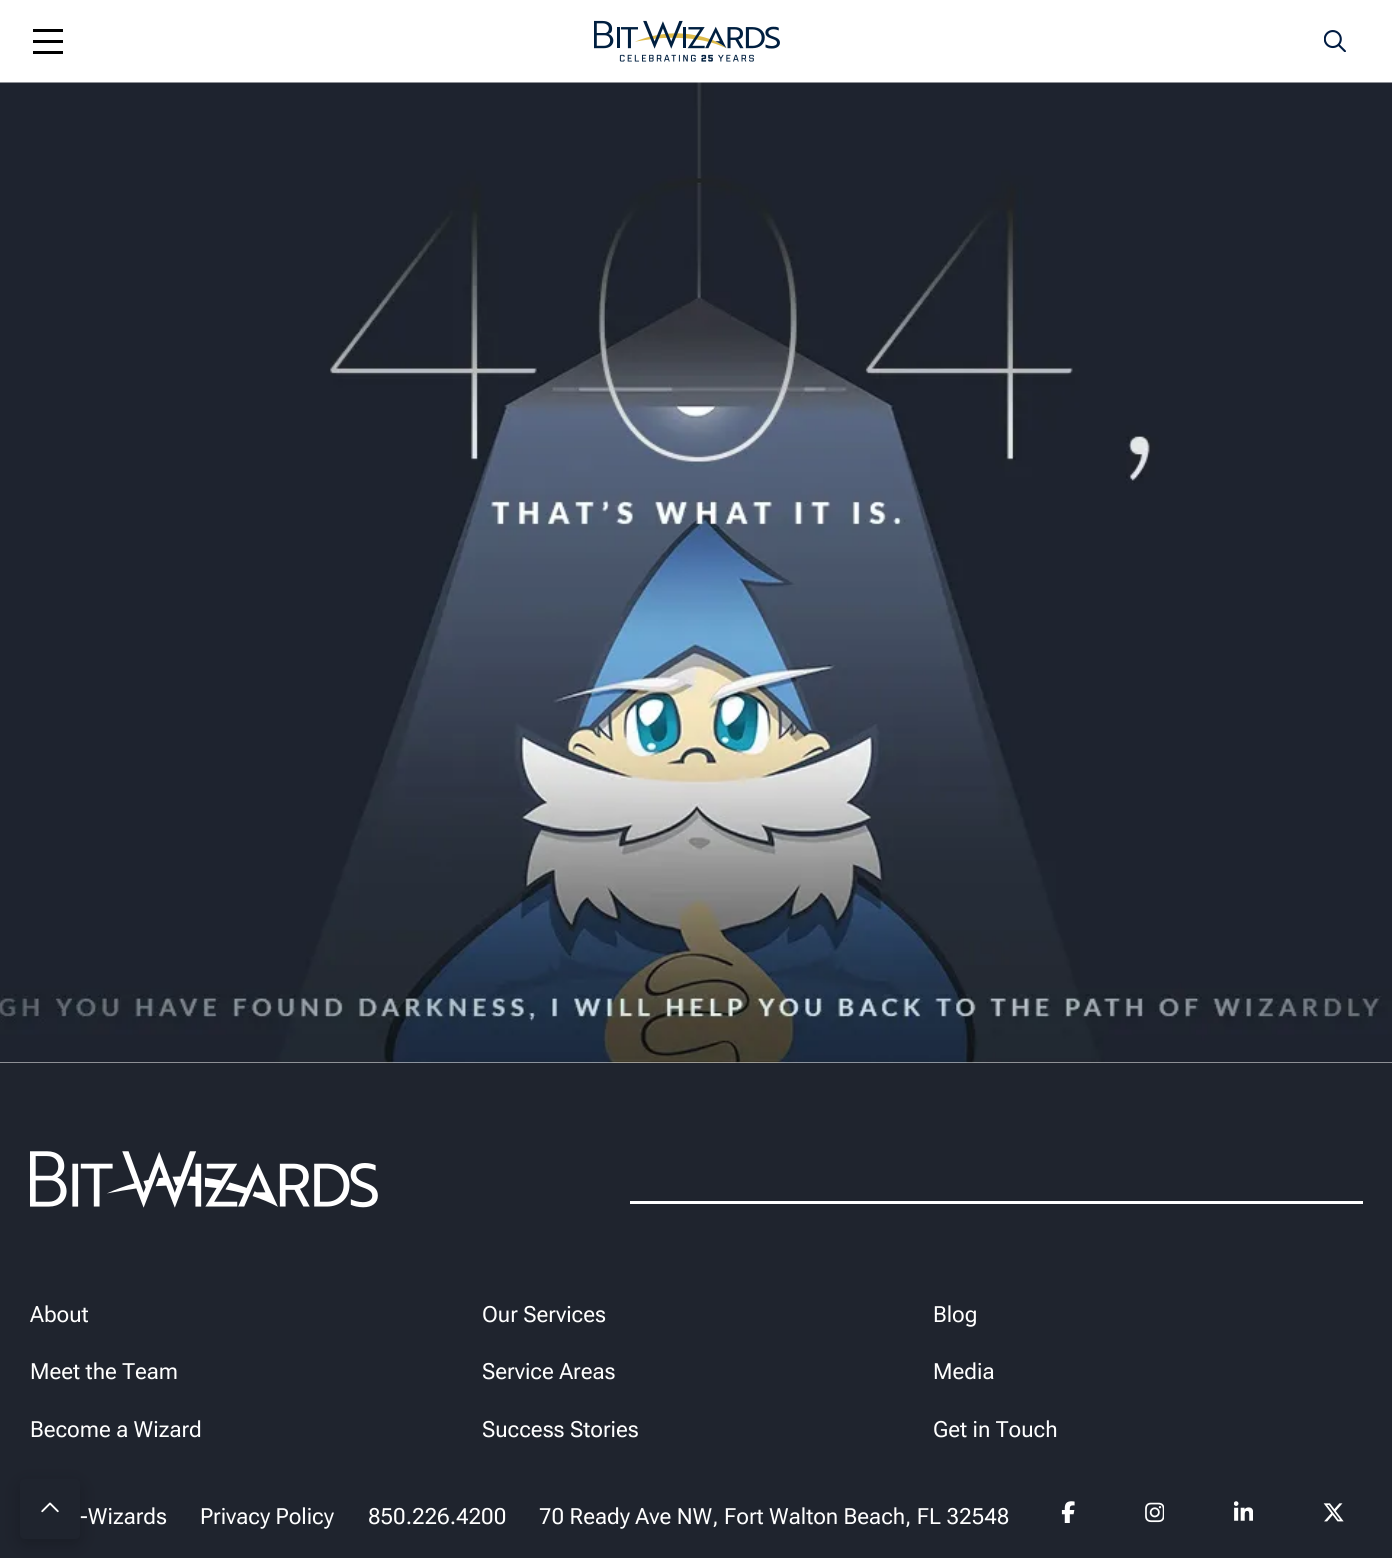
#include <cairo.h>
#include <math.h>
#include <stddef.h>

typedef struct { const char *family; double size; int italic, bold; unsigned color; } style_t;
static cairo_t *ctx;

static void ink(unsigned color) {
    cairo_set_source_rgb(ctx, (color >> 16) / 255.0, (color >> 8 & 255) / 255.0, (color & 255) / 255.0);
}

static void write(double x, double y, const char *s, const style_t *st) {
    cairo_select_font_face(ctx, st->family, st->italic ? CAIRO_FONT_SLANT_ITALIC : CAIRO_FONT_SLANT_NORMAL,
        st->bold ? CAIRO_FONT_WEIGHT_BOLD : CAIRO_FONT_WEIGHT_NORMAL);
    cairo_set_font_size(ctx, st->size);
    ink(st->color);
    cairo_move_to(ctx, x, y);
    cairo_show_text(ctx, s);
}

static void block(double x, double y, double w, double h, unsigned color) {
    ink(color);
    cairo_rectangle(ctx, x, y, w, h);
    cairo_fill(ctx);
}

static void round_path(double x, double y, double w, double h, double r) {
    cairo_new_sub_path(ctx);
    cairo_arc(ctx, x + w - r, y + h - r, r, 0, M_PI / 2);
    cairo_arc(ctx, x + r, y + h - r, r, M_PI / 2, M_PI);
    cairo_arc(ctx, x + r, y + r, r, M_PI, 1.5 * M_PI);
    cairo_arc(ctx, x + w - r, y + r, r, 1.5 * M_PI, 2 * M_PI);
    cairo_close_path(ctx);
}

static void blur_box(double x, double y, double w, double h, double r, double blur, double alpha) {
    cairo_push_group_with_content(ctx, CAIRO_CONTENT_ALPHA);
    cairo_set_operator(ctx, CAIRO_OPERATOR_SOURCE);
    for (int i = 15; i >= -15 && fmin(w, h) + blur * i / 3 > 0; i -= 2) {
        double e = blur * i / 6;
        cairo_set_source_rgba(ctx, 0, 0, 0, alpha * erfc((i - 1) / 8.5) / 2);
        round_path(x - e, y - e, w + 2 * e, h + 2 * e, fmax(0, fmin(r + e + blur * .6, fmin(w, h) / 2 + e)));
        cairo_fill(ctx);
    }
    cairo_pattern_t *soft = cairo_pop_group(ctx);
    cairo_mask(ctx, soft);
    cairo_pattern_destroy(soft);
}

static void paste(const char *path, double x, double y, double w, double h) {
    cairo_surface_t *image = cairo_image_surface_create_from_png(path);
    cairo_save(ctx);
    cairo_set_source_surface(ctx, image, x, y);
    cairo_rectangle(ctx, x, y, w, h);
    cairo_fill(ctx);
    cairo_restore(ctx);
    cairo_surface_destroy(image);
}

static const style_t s1 = {"Roboto Flex", 22.25, 0, 0, 0xffffff};

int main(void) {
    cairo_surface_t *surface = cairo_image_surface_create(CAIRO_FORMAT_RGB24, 1392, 1558);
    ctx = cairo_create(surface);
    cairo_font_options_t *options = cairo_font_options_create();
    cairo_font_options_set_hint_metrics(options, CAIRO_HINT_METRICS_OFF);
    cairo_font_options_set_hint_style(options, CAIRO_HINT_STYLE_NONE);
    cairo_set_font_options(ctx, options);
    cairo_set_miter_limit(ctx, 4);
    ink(0xffffff);
    cairo_paint(ctx);
    block(33, 29, 30, 3, 0x000000);
    block(33, 40, 30, 3, 0x000000);
    block(33, 51, 30, 3, 0x000000);
    paste("pic1.png", 594, 20, 186, 42);
    paste("pic2.png", 1324, 30, 22, 22);
    paste("pic3.png", 0, 82, 1392, 981);
    block(0, 1063, 1392, 495, 0x1f242e);
    paste("pic4.png", 30, 1151, 348, 57);
    block(630, 1201, 733, 3, 0xffffff);
    write(30, 1322, "About", &s1);
    write(482, 1322, "Our Services", &s1);
    write(933, 1322, "Blog", &s1);
    write(30, 1379, "Meet the Team", &s1);
    write(482, 1379, "Service Areas", &s1);
    write(933, 1379, "Media", &s1);
    write(30, 1437, "Become a Wizard", &s1);
    write(482, 1437, "Success Stories", &s1);
    write(933, 1437, "Get in Touch", &s1);
    ink(0x000000);
    blur_box(20, 1484, 60, 60, 5, 10, 0.2);
    ink(0x1f242e);
    round_path(20, 1479, 60, 60, 5);
    cairo_fill(ctx);
    paste("pic5.png", 41, 1502, 18, 11);
    write(80, 1524, "-Wizards", &s1);
    write(200, 1524, "Privacy Policy", &s1);
    write(368, 1524, "850.226.4200", &s1);
    write(539, 1524, "70 Ready Ave NW, Fort Walton Beach, FL 32548", &s1);
    paste("pic6.png", 1061, 1501, 14, 22);
    paste("pic7.png", 1145, 1502, 19, 21);
    paste("pic8.png", 1234, 1501, 19, 20);
    paste("pic9.png", 1323, 1503, 21, 19);
    cairo_surface_write_to_png(surface, "screenshot.png");
    cairo_font_options_destroy(options);
    cairo_destroy(ctx);
    cairo_surface_destroy(surface);
    return 0;
}
